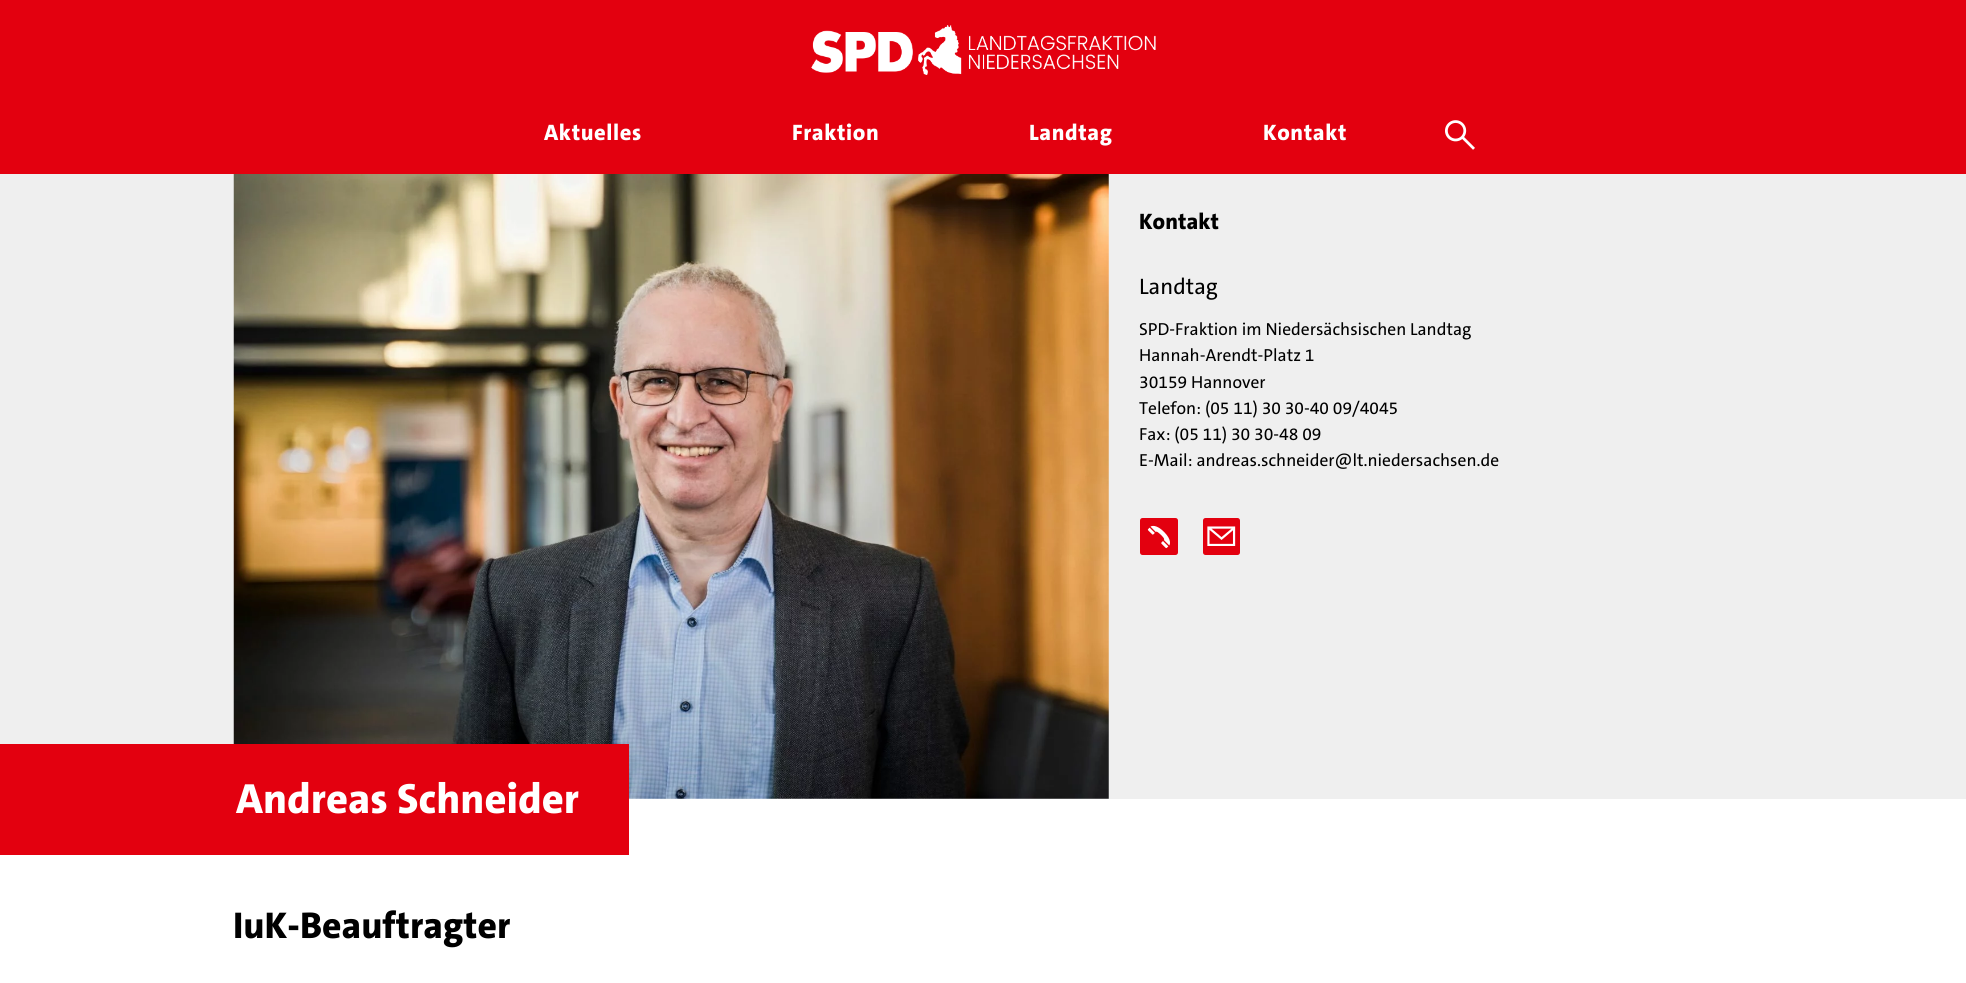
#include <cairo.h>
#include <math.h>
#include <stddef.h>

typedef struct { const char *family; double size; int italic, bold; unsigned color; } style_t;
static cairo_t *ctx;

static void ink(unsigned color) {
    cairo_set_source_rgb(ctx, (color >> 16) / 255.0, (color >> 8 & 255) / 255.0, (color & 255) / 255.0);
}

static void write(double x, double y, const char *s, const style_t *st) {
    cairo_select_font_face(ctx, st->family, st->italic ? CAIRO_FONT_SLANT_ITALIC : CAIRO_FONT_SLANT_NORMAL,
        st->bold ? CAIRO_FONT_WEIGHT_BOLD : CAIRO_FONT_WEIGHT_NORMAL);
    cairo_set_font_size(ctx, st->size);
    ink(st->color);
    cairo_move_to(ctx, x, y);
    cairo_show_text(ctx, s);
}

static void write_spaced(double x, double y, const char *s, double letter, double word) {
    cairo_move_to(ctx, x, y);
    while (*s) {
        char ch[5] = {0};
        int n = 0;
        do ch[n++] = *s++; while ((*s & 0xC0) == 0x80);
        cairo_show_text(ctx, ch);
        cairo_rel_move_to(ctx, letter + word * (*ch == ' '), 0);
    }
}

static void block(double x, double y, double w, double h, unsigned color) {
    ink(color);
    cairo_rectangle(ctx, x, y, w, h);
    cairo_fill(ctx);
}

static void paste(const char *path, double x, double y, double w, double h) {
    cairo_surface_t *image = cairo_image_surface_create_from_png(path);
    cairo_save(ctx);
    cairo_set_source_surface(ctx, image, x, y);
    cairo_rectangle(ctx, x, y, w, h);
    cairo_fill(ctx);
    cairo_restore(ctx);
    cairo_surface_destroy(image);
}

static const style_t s1 = {"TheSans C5 ExtraBold", 22.5, 0, 0, 0x000000};
static const style_t s2 = {"TheSans C5 Medium", 22.5, 0, 0, 0x000000};
static const style_t s3 = {"TheSans C5 Medium", 17.5, 0, 0, 0x000000};
static const style_t s4 = {"TheSans C5 ExtraBold", 42.5, 0, 0, 0xffffff};
static const style_t s5 = {"TheSans C5 ExtraBold", 37.5, 0, 0, 0x000000};

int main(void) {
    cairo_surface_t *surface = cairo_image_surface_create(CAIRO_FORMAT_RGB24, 1966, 983);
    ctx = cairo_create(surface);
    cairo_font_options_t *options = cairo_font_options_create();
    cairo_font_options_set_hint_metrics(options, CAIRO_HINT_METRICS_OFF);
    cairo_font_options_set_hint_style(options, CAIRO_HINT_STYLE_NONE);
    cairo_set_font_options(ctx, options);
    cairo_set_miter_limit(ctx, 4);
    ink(0xffffff);
    cairo_paint(ctx);
    block(0, 0, 1966, 174, 0xe3000f);
    paste("pic1.png", 811, 25, 345, 50);
    cairo_select_font_face(ctx, "TheSans C5 ExtraBold", CAIRO_FONT_SLANT_NORMAL, CAIRO_FONT_WEIGHT_NORMAL);
    cairo_set_font_size(ctx, 22.5);
    ink(0xffffff);
    write_spaced(544, 140, "Aktuelles", 0.6, 0);
    write_spaced(792, 140, "Fraktion", 0.6, 0);
    write_spaced(1029, 140, "Landtag", 0.6, 0);
    write_spaced(1263, 140, "Kontakt", 0.6, 0);
    paste("pic2.png", 1445, 120, 30, 30);
    block(0, 174, 1966, 625, 0xefefef);
    paste("pic3.png", 233, 174, 876, 625);
    write(1139, 229, "Kontakt", &s1);
    write(1139, 294, "Landtag", &s2);
    write(1139, 335, "SPD-Fraktion im Niedersächsischen Landtag", &s3);
    write(1139, 361, "Hannah-Arendt-Platz 1", &s3);
    write(1139, 388, "30159 Hannover", &s3);
    write(1139, 414, "Telefon: (05 11) 30 30-40 09/4045", &s3);
    write(1139, 440, "Fax: (05 11) 30 30-48 09", &s3);
    write(1139, 466, "E-Mail: andreas.schneider@lt.niedersachsen.de", &s3);
    paste("pic4.png", 1140, 518, 38, 37);
    paste("pic5.png", 1203, 518, 37, 37);
    block(0, 744, 629, 111, 0xe3000f);
    write(236, 813, "Andreas Schneider", &s4);
    write(233, 938, "IuK-Beauftragter", &s5);
    cairo_surface_write_to_png(surface, "screenshot.png");
    cairo_font_options_destroy(options);
    cairo_destroy(ctx);
    cairo_surface_destroy(surface);
    return 0;
}
